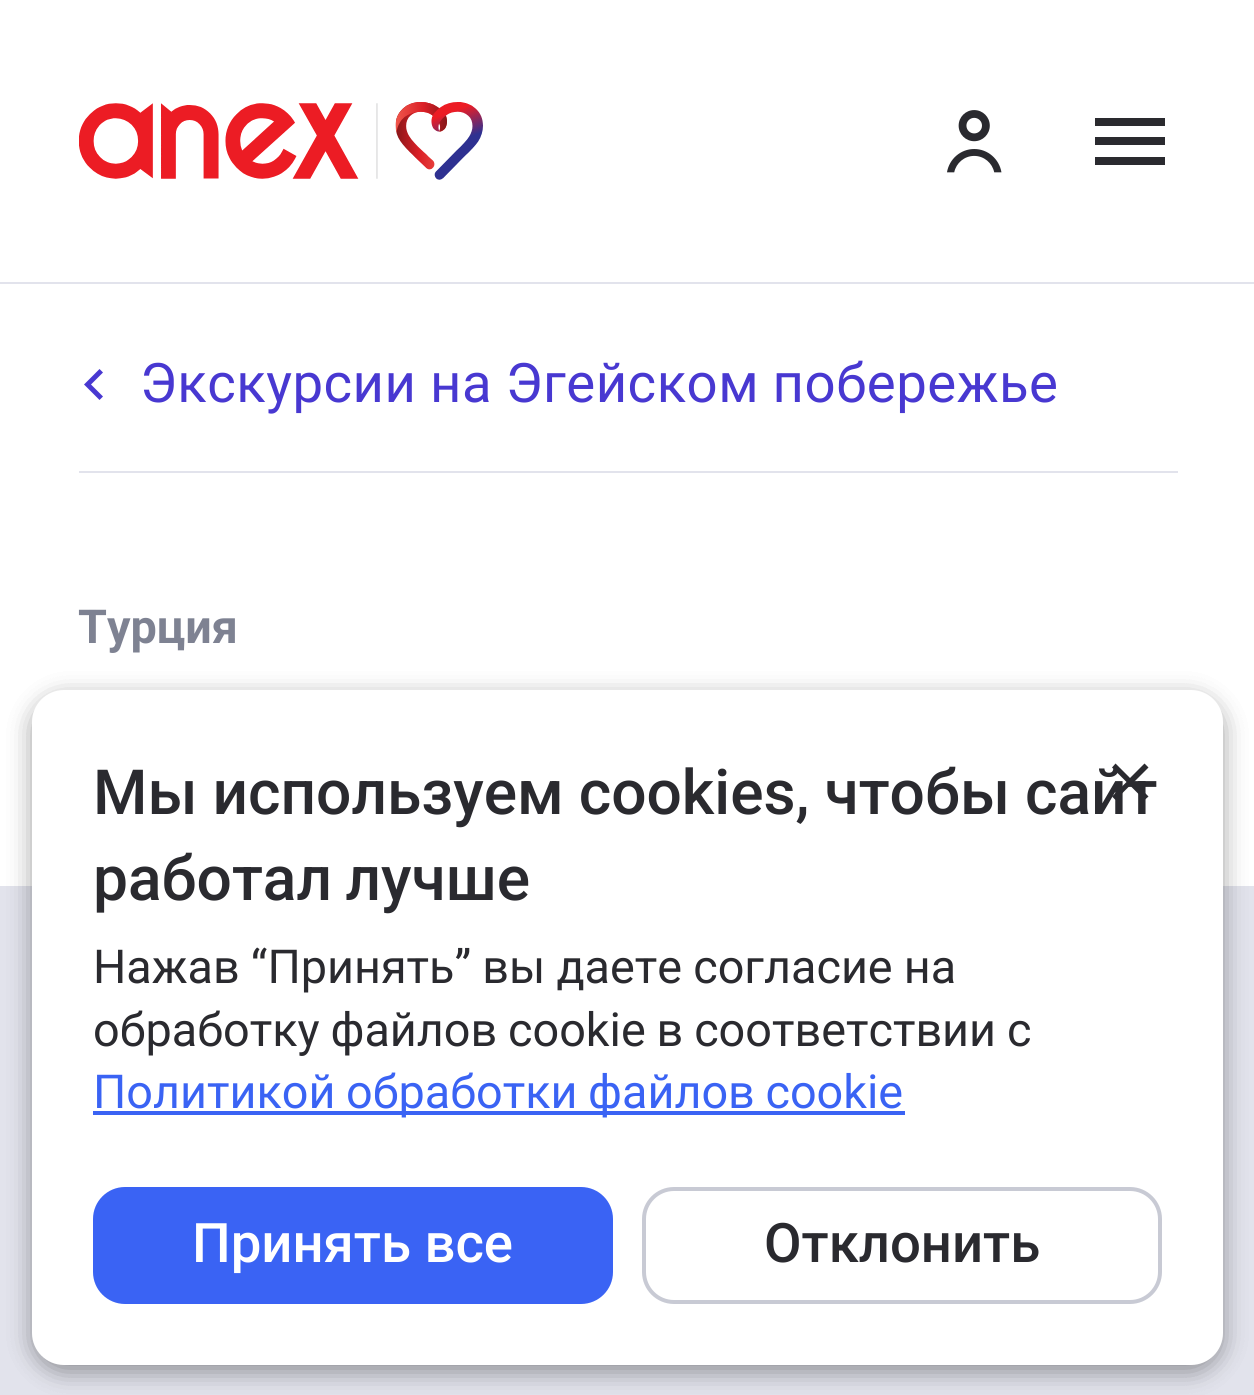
#include <cairo.h>
#include <math.h>
#include <stddef.h>

typedef struct { const char *family; double size; int italic, bold; unsigned color; } style_t;
static cairo_t *ctx;

static void ink(unsigned color) {
    cairo_set_source_rgb(ctx, (color >> 16) / 255.0, (color >> 8 & 255) / 255.0, (color & 255) / 255.0);
}

static void write(double x, double y, const char *s, const style_t *st) {
    cairo_select_font_face(ctx, st->family, st->italic ? CAIRO_FONT_SLANT_ITALIC : CAIRO_FONT_SLANT_NORMAL,
        st->bold ? CAIRO_FONT_WEIGHT_BOLD : CAIRO_FONT_WEIGHT_NORMAL);
    cairo_set_font_size(ctx, st->size);
    ink(st->color);
    cairo_move_to(ctx, x, y);
    cairo_show_text(ctx, s);
}

static void write_spaced(double x, double y, const char *s, double letter, double word) {
    cairo_move_to(ctx, x, y);
    while (*s) {
        char ch[5] = {0};
        int n = 0;
        do ch[n++] = *s++; while ((*s & 0xC0) == 0x80);
        cairo_show_text(ctx, ch);
        cairo_rel_move_to(ctx, letter + word * (*ch == ' '), 0);
    }
}

static void block(double x, double y, double w, double h, unsigned color) {
    ink(color);
    cairo_rectangle(ctx, x, y, w, h);
    cairo_fill(ctx);
}

static void round_path(double x, double y, double w, double h, double r) {
    cairo_new_sub_path(ctx);
    cairo_arc(ctx, x + w - r, y + h - r, r, 0, M_PI / 2);
    cairo_arc(ctx, x + r, y + h - r, r, M_PI / 2, M_PI);
    cairo_arc(ctx, x + r, y + r, r, M_PI, 1.5 * M_PI);
    cairo_arc(ctx, x + w - r, y + r, r, 1.5 * M_PI, 2 * M_PI);
    cairo_close_path(ctx);
}

static void blur_box(double x, double y, double w, double h, double r, double blur, double alpha) {
    cairo_push_group_with_content(ctx, CAIRO_CONTENT_ALPHA);
    cairo_set_operator(ctx, CAIRO_OPERATOR_SOURCE);
    for (int i = 15; i >= -15 && fmin(w, h) + blur * i / 3 > 0; i -= 2) {
        double e = blur * i / 6;
        cairo_set_source_rgba(ctx, 0, 0, 0, alpha * erfc((i - 1) / 8.5) / 2);
        round_path(x - e, y - e, w + 2 * e, h + 2 * e, fmax(0, fmin(r + e + blur * .6, fmin(w, h) / 2 + e)));
        cairo_fill(ctx);
    }
    cairo_pattern_t *soft = cairo_pop_group(ctx);
    cairo_mask(ctx, soft);
    cairo_pattern_destroy(soft);
}

static void paste(const char *path, double x, double y, double w, double h) {
    cairo_surface_t *image = cairo_image_surface_create_from_png(path);
    cairo_save(ctx);
    cairo_set_source_surface(ctx, image, x, y);
    cairo_rectangle(ctx, x, y, w, h);
    cairo_fill(ctx);
    cairo_restore(ctx);
    cairo_surface_destroy(image);
}

static const style_t s1 = {"Roboto", 46.75, 0, 1, 0x7e8292};
static const style_t s2 = {"Roboto Medium", 54.5, 0, 0, 0xffffff};
static const style_t s3 = {"Roboto Medium", 54.5, 0, 0, 0x2a2a2f};

int main(void) {
    cairo_surface_t *surface = cairo_image_surface_create(CAIRO_FORMAT_RGB24, 1254, 1395);
    ctx = cairo_create(surface);
    cairo_font_options_t *options = cairo_font_options_create();
    cairo_font_options_set_hint_metrics(options, CAIRO_HINT_METRICS_OFF);
    cairo_font_options_set_hint_style(options, CAIRO_HINT_STYLE_NONE);
    cairo_set_font_options(ctx, options);
    cairo_set_miter_limit(ctx, 4);
    ink(0xffffff);
    cairo_paint(ctx);
    block(0, 282, 1254, 2, 0xe2e3ec);
    paste("pic1.png", 79, 102, 404, 78);
    paste("pic2.png", 947, 110, 55, 63);
    ink(0x2a2a2f);
    cairo_new_path(ctx);
    cairo_move_to(ctx, 1095, 165);
    cairo_line_to(ctx, 1165, 165);
    cairo_line_to(ctx, 1165, 157);
    cairo_line_to(ctx, 1095, 157);
    cairo_close_path(ctx);
    cairo_move_to(ctx, 1095, 145);
    cairo_line_to(ctx, 1165, 145);
    cairo_line_to(ctx, 1165, 137);
    cairo_line_to(ctx, 1095, 137);
    cairo_close_path(ctx);
    cairo_move_to(ctx, 1095, 118);
    cairo_line_to(ctx, 1095, 126);
    cairo_line_to(ctx, 1165, 126);
    cairo_line_to(ctx, 1165, 118);
    cairo_close_path(ctx);
    cairo_fill(ctx);
    block(79, 471, 1099, 2, 0xe2e3ec);
    ink(0x4838d1);
    cairo_new_path(ctx);
    cairo_move_to(ctx, 103, 396.5);
    cairo_line_to(ctx, 91, 384.5);
    cairo_line_to(ctx, 103, 372.5);
    cairo_line_to(ctx, 99.5, 369);
    cairo_line_to(ctx, 84, 384.5);
    cairo_line_to(ctx, 99.5, 400);
    cairo_close_path(ctx);
    cairo_fill(ctx);
    cairo_select_font_face(ctx, "Roboto", CAIRO_FONT_SLANT_NORMAL, CAIRO_FONT_WEIGHT_NORMAL);
    cairo_set_font_size(ctx, 54.5);
    write_spaced(140, 402, "Экскурсии на Эгейском побережье", 0.5, -0.5);
    write(78, 643, "Турция", &s1);
    block(0, 886, 1254, 509, 0xe2e3ec);
    ink(0x000000);
    blur_box(32, 697, 1191, 675, 32, 12, 0.2);
    blur_box(32, 697, 1191, 675, 32, 12, 0.2);
    ink(0xffffff);
    round_path(32, 690, 1191, 675, 32);
    cairo_fill(ctx);
    ink(0x2a2a2f);
    cairo_new_path(ctx);
    cairo_move_to(ctx, 1148.5, 767.5);
    cairo_line_to(ctx, 1144.5, 763.5);
    cairo_line_to(ctx, 1130, 778);
    cairo_line_to(ctx, 1115.5, 763.5);
    cairo_line_to(ctx, 1112, 767.5);
    cairo_line_to(ctx, 1126.5, 782);
    cairo_line_to(ctx, 1112, 796.5);
    cairo_line_to(ctx, 1115.5, 800);
    cairo_line_to(ctx, 1130, 785.5);
    cairo_line_to(ctx, 1144.5, 800);
    cairo_line_to(ctx, 1148.5, 796.5);
    cairo_line_to(ctx, 1134, 782);
    cairo_close_path(ctx);
    cairo_fill(ctx);
    cairo_select_font_face(ctx, "Roboto Medium", CAIRO_FONT_SLANT_NORMAL, CAIRO_FONT_WEIGHT_NORMAL);
    cairo_set_font_size(ctx, 62.25);
    write_spaced(93, 814, "Мы используем cookies, чтобы сайт", 0, -0.5);
    write_spaced(93, 900, "работал лучше", 0, -2);
    cairo_select_font_face(ctx, "Roboto", CAIRO_FONT_SLANT_NORMAL, CAIRO_FONT_WEIGHT_NORMAL);
    cairo_set_font_size(ctx, 46.75);
    write_spaced(93, 983, "Нажав “Принять” вы даете согласие на", 0, -0.5);
    write_spaced(93, 1046, "обработку файлов cookie в соответствии с", 0, -0.75);
    block(93, 1111, 812, 4, 0x3a63f4);
    write_spaced(93, 1108, "Политикой обработки файлов cookie", 0, -1);
    round_path(93, 1187, 520, 117, 32);
    cairo_fill(ctx);
    write(192, 1262, "Принять все", &s2);
    round_path(644, 1189, 516, 113, 30);
    ink(0xc8cad4);
    cairo_set_line_width(ctx, 4);
    cairo_stroke(ctx);
    write(764, 1262, "Отклонить", &s3);
    cairo_surface_write_to_png(surface, "screenshot.png");
    cairo_font_options_destroy(options);
    cairo_destroy(ctx);
    cairo_surface_destroy(surface);
    return 0;
}
